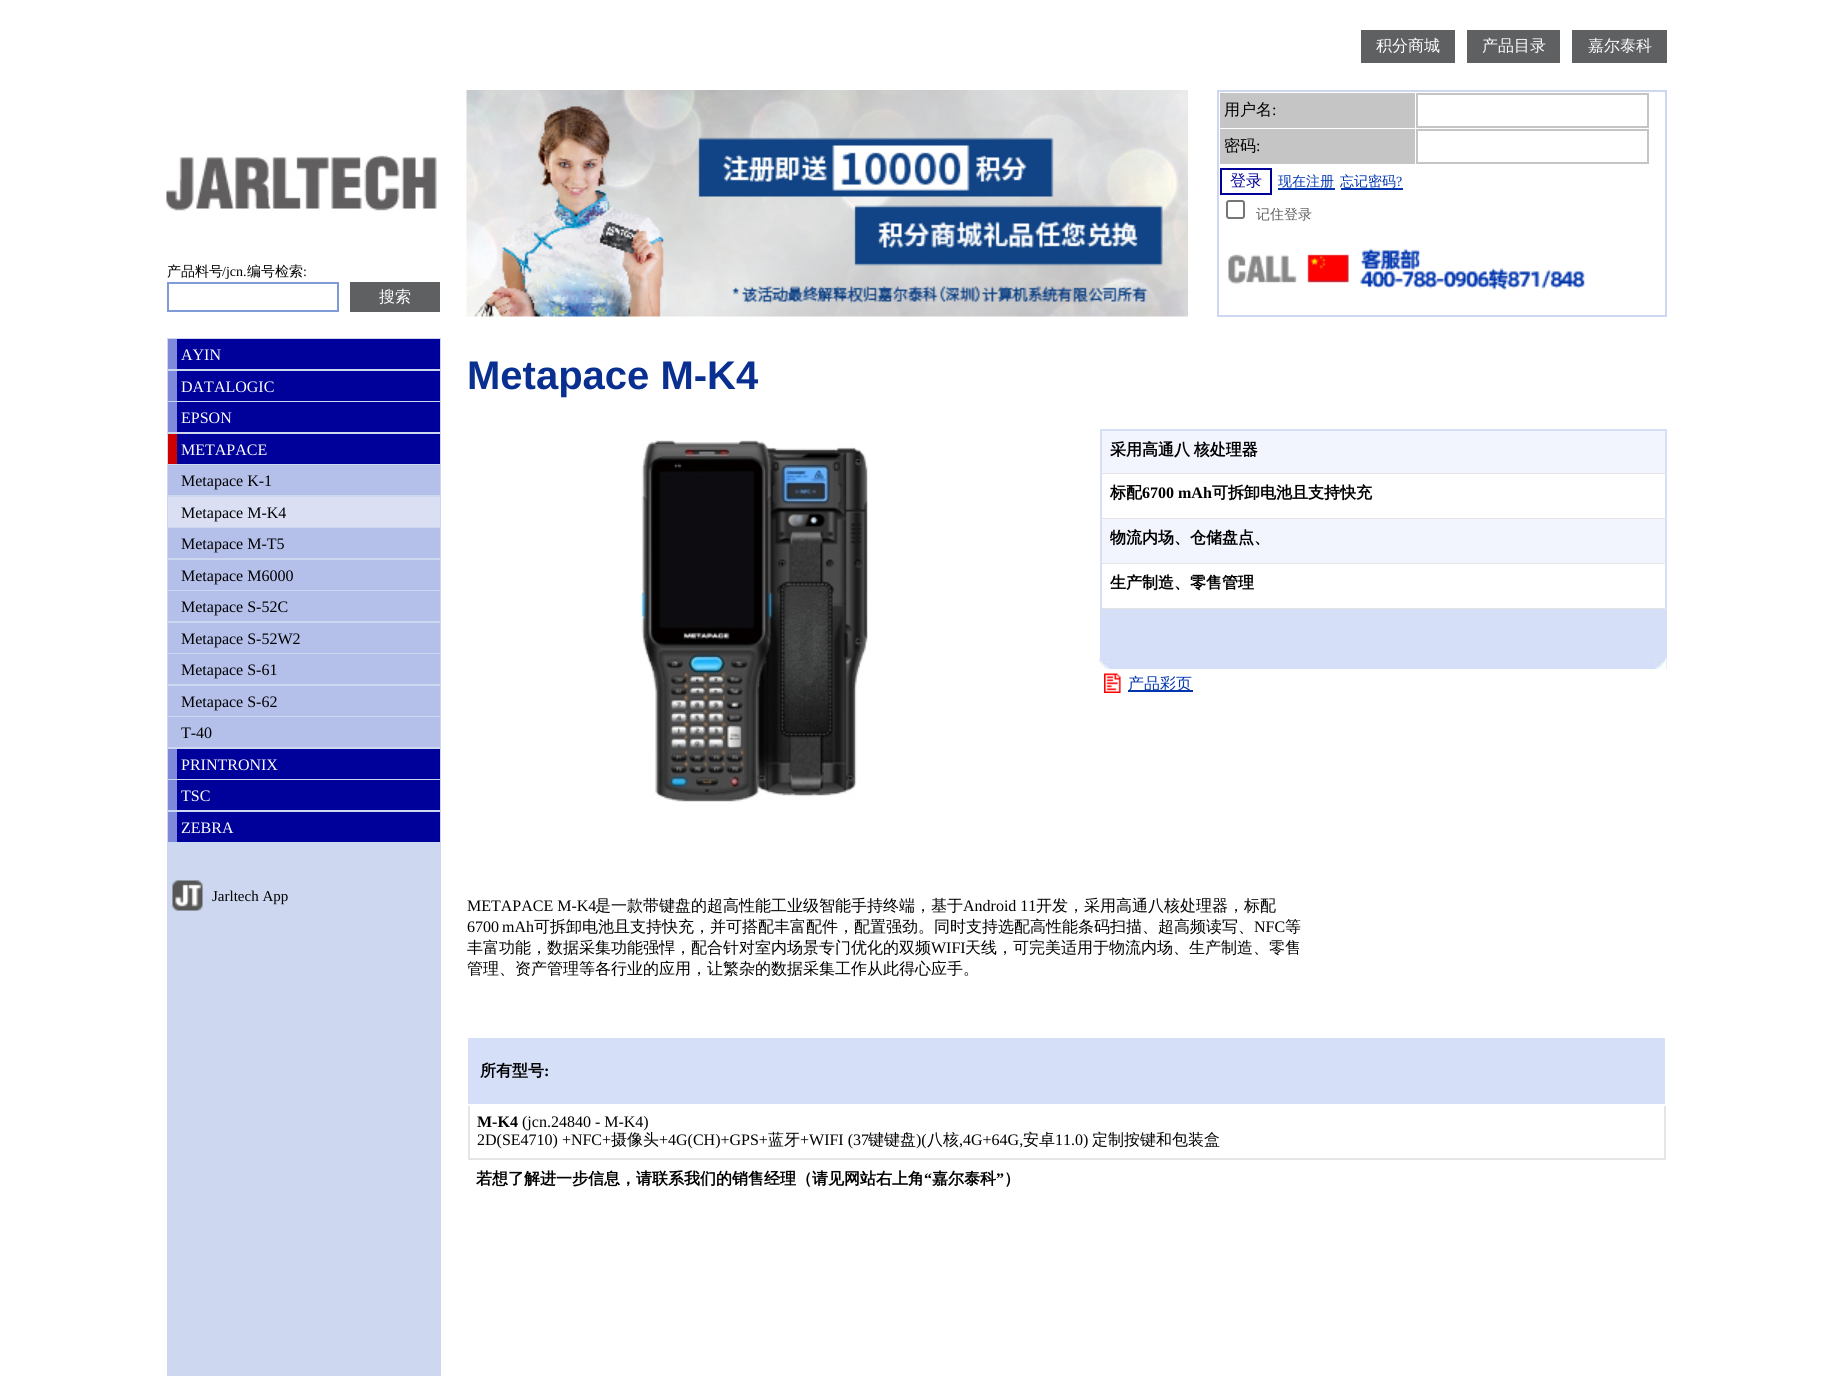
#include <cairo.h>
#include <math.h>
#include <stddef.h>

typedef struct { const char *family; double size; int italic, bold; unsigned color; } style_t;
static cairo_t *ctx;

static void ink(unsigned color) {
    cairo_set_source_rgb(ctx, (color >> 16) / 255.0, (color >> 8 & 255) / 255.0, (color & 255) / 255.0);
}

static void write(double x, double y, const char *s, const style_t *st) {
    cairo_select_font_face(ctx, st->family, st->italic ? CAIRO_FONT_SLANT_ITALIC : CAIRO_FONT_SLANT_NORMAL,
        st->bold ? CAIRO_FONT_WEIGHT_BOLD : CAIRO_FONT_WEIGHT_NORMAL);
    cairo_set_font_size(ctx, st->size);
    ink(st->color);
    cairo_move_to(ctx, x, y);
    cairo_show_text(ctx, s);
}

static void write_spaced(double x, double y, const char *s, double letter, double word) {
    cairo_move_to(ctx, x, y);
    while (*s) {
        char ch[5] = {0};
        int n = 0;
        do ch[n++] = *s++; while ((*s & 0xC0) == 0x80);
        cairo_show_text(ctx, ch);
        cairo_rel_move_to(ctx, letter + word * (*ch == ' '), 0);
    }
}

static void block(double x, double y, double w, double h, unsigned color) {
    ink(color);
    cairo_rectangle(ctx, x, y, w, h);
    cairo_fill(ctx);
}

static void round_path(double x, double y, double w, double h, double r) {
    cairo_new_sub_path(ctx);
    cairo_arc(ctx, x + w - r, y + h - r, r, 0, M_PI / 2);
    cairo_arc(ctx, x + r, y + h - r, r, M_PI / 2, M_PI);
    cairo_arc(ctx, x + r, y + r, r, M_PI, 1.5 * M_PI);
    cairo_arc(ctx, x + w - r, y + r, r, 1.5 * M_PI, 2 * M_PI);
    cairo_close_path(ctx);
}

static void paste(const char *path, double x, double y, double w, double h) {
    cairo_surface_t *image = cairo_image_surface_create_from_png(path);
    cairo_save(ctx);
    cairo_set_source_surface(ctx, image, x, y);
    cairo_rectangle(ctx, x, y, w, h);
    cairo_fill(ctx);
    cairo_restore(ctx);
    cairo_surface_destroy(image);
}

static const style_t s1 = {"WenQuanYi Zen Hei Medium", 14, 0, 0, 0x000000};
static const style_t s2 = {"Liberation Serif", 14, 0, 0, 0x000000};
static const style_t s3 = {"WenQuanYi Zen Hei Medium", 16, 0, 0, 0xffffff};
static const style_t s4 = {"Liberation Serif", 16, 0, 0, 0xffffff};
static const style_t s5 = {"Liberation Serif", 16, 0, 0, 0x000000};
static const style_t s6 = {"Liberation Serif", 15, 0, 0, 0x000000};
static const style_t s7 = {"WenQuanYi Zen Hei Medium", 16, 0, 0, 0x000000};
static const style_t s8 = {"WenQuanYi Zen Hei Medium", 16, 0, 0, 0x02019a};
static const style_t s9 = {"WenQuanYi Zen Hei Medium", 14, 0, 0, 0x0236b0};
static const style_t s10 = {"Liberation Serif", 14, 0, 0, 0x0236b0};
static const style_t s11 = {"WenQuanYi Zen Hei Medium", 14, 0, 0, 0x616161};
static const style_t s12 = {"Liberation Sans", 40, 0, 1, 0x092f90};
static const style_t s13 = {"WenQuanYi Zen Hei", 16, 0, 1, 0x000000};
static const style_t s14 = {"Liberation Serif", 16, 0, 1, 0x000000};
static const style_t s15 = {"WenQuanYi Zen Hei Medium", 16, 0, 0, 0x0236b0};

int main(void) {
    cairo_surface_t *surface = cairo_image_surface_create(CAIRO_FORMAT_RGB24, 1832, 1388);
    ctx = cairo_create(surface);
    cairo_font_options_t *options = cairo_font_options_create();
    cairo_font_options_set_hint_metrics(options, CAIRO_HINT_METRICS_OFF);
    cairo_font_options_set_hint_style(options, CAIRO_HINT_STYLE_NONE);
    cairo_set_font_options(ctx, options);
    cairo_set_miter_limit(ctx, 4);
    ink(0xffffff);
    cairo_paint(ctx);
    paste("pic1.png", 166, 155, 271, 56);
    write(167, 276, "产品料号", &s1);
    write(222, 276, "/jcn.", &s2);
    write(247, 276, "编号检索", &s1);
    write(303, 276, ":", &s2);
    cairo_rectangle(ctx, 168, 283, 170, 28);
    ink(0x809ad7);
    cairo_stroke(ctx);
    block(350, 282, 90, 30, 0x5f6062);
    write(379, 302, "搜索", &s3);
    block(167, 338, 274, 1038, 0xcdd7f0);
    block(177, 339, 263, 30, 0x00019a);
    block(168, 339, 9, 30, 0x7e89db);
    write(181, 360, "AYIN", &s4);
    block(177, 371, 263, 30, 0x00019a);
    block(168, 371, 9, 30, 0x7e89db);
    write(181, 392, "DATALOGIC", &s4);
    block(177, 402, 263, 30, 0x00019a);
    block(168, 402, 9, 30, 0x7e89db);
    write(181, 423, "EPSON", &s4);
    block(177, 434, 263, 30, 0x00019a);
    block(168, 434, 9, 30, 0xce0000);
    write(181, 455, "METAPACE", &s4);
    block(168, 465, 272, 30, 0xb4c0ea);
    write(181, 486, "Metapace K-1", &s5);
    block(168, 497, 272, 30, 0xdadff3);
    write(181, 518, "Metapace M-K4", &s5);
    block(168, 528, 272, 30, 0xb4c0ea);
    write(181, 549, "Metapace M-T5", &s5);
    block(168, 560, 272, 30, 0xb4c0ea);
    write(181, 581, "Metapace M6000", &s5);
    block(168, 591, 272, 30, 0xb4c0ea);
    write(181, 612, "Metapace S-52C", &s5);
    block(168, 623, 272, 30, 0xb4c0ea);
    write(181, 644, "Metapace S-52W2", &s5);
    block(168, 654, 272, 30, 0xb4c0ea);
    write(181, 675, "Metapace S-61", &s5);
    block(168, 686, 272, 30, 0xb4c0ea);
    write(181, 707, "Metapace S-62", &s5);
    block(168, 717, 272, 30, 0xb4c0ea);
    write(181, 738, "T-40", &s5);
    block(177, 749, 263, 30, 0x00019a);
    block(168, 749, 9, 30, 0x7e89db);
    write(181, 770, "PRINTRONIX", &s4);
    block(177, 780, 263, 30, 0x00019a);
    block(168, 780, 9, 30, 0x7e89db);
    write(181, 801, "TSC", &s4);
    block(177, 812, 263, 30, 0x00019a);
    block(168, 812, 9, 30, 0x7e89db);
    write(181, 833, "ZEBRA", &s4);
    paste("pic2.png", 172, 880, 31, 31);
    write(212, 901, "Jarltech App", &s6);
    block(1361, 30, 94, 33, 0x5f6062);
    write(1376, 51, "积分商城", &s3);
    block(1467, 30, 93, 33, 0x5f6062);
    write(1482, 51, "产品目录", &s3);
    block(1572, 30, 95, 33, 0x5f6062);
    write(1588, 51, "嘉尔泰科", &s3);
    paste("pic3.png", 466, 90, 722, 227);
    cairo_rectangle(ctx, 1218, 91, 448, 225);
    ink(0xcdd7f0);
    cairo_stroke(ctx);
    block(1220, 93, 195, 35, 0xc5c5c5);
    write(1224, 115, "用户名", &s7);
    write(1272, 115, ":", &s5);
    cairo_rectangle(ctx, 1417, 94, 231, 33);
    ink(0xc5c5c5);
    cairo_stroke(ctx);
    block(1220, 129, 195, 35, 0xc5c5c5);
    write(1224, 151, "密码", &s7);
    write(1256, 151, ":", &s5);
    cairo_rectangle(ctx, 1417, 130, 231, 33);
    ink(0xc5c5c5);
    cairo_stroke(ctx);
    cairo_rectangle(ctx, 1221, 169, 50, 25);
    ink(0x000098);
    cairo_stroke(ctx);
    write(1230, 186, "登录", &s8);
    write(1278, 186, "现在注册", &s9);
    block(1278, 188, 57, 2, 0x0236b0);
    write(1340, 186, "忘记密码", &s9);
    write(1396, 186, "?", &s10);
    block(1341, 188, 62, 2, 0x0236b0);
    round_path(1227, 201, 17, 17, 2);
    ink(0x767676);
    cairo_stroke(ctx);
    write(1256, 219, "记住登录", &s11);
    paste("pic4.png", 1228, 248, 358, 42);
    write(467, 389, "Metapace M-K4", &s12);
    paste("pic5.png", 640, 440, 228, 362);
    block(1102, 431, 563, 42, 0xf2f5fe);
    block(1100, 429, 567, 2, 0xd5e0f6);
    block(1665, 429, 2, 180, 0xd5e0f6);
    block(1100, 473, 567, 1, 0xe5e5e5);
    block(1100, 429, 2, 45, 0xd5e0f6);
    cairo_select_font_face(ctx, "WenQuanYi Zen Hei", CAIRO_FONT_SLANT_NORMAL, CAIRO_FONT_WEIGHT_BOLD);
    cairo_set_font_size(ctx, 16);
    ink(0x000000);
    write_spaced(1110, 455, "采用高通八 核处理器", 0, -1);
    block(1100, 518, 567, 1, 0xe5e5e5);
    block(1100, 474, 2, 45, 0xd5e0f6);
    write(1110, 498, "标配", &s13);
    write(1142, 498, "6700 mAh", &s14);
    write(1212, 498, "可拆卸电池且支持快充", &s13);
    block(1102, 519, 563, 44, 0xf2f5fe);
    block(1100, 563, 567, 1, 0xe5e5e5);
    block(1100, 519, 2, 45, 0xd5e0f6);
    write(1110, 543, "物流内场、仓储盘点、", &s13);
    block(1100, 608, 567, 1, 0xe5e5e5);
    block(1100, 564, 2, 45, 0xd5e0f6);
    write(1110, 588, "生产制造、零售管理", &s13);
    block(1100, 609, 567, 60, 0xd5dff8);
    paste("pic6.png", 1099, 658, 568, 11);
    paste("pic7.png", 1104, 673, 17, 20);
    block(1128, 690, 65, 2, 0x0135af);
    write(1128, 689, "产品彩页", &s15);
    write(467, 911, "METAPACE M-K4", &s5);
    write(595, 911, "是一款带键盘的超高性能工业级智能手持终端，基于", &s7);
    write(963, 911, "Android 11", &s5);
    write(1036, 911, "开发，采用高通八核处理器，标配", &s7);
    cairo_select_font_face(ctx, "Liberation Serif", CAIRO_FONT_SLANT_NORMAL, CAIRO_FONT_WEIGHT_NORMAL);
    write_spaced(467, 932, "6700 mAh", 0, -1);
    write(534, 932, "可拆卸电池且支持快充，并可搭配丰富配件，配置强劲。同时支持选配高性能条码扫描、超高频读写、", &s7);
    write(1254, 932, "NFC", &s5);
    write(1285, 932, "等", &s7);
    write(467, 953, "丰富功能，数据采集功能强悍，配合针对室内场景专门优化的双频", &s7);
    write(931, 953, "WIFI", &s5);
    write(965, 953, "天线，可完美适用于物流内场、生产制造、零售", &s7);
    write(467, 974, "管理、资产管理等各行业的应用，让繁杂的数据采集工作从此得心应手。", &s7);
    block(468, 1038, 1197, 66, 0xd5dff8);
    write(480, 1076, "所有型号", &s13);
    write(544, 1076, ":", &s14);
    block(1664, 1106, 2, 54, 0xe5e5e5);
    block(468, 1158, 1197, 2, 0xe5e5e5);
    block(468, 1106, 2, 54, 0xe5e5e5);
    write(477, 1127, "M-K4", &s14);
    write(522, 1127, "(jcn.24840 - M-K4)", &s5);
    write(477, 1145, "2D(SE4710) +NFC+", &s5);
    write(611, 1145, "摄像头", &s7);
    write(659, 1145, "+4G(CH)+GPS+", &s5);
    write(768, 1145, "蓝牙", &s7);
    write(800, 1145, "+WIFI (37", &s5);
    write(868, 1145, "键键盘", &s7);
    write(916, 1145, ")(", &s5);
    write(927, 1145, "八核", &s7);
    write(959, 1145, ",4G+64G,", &s5);
    write(1023, 1145, "安卓", &s7);
    write(1055, 1145, "11.0)", &s5);
    write(1092, 1145, "定制按键和包装盒", &s7);
    write(476, 1184, "若想了解进一步信息，请联系我们的销售经理（请见网站右上角", &s13);
    write(924, 1184, "“", &s14);
    write(932, 1184, "嘉尔泰科", &s13);
    write(996, 1184, "”", &s14);
    write(1004, 1184, "）", &s13);
    cairo_surface_write_to_png(surface, "screenshot.png");
    cairo_font_options_destroy(options);
    cairo_destroy(ctx);
    cairo_surface_destroy(surface);
    return 0;
}
